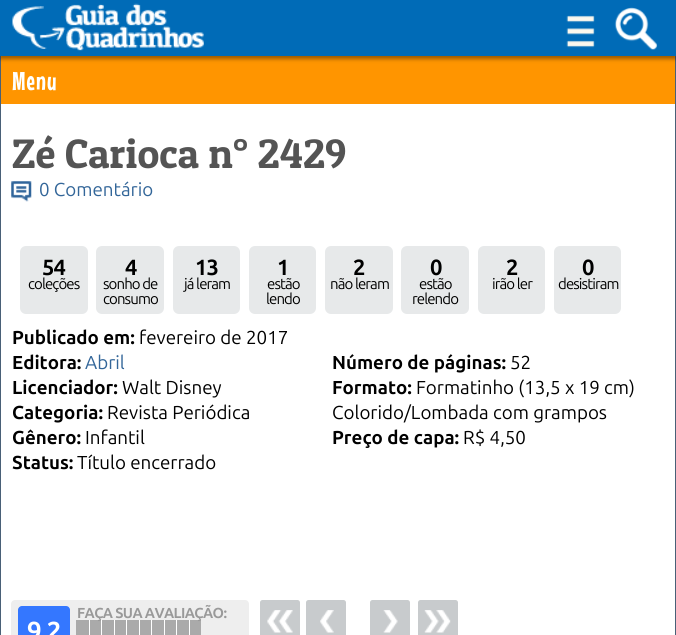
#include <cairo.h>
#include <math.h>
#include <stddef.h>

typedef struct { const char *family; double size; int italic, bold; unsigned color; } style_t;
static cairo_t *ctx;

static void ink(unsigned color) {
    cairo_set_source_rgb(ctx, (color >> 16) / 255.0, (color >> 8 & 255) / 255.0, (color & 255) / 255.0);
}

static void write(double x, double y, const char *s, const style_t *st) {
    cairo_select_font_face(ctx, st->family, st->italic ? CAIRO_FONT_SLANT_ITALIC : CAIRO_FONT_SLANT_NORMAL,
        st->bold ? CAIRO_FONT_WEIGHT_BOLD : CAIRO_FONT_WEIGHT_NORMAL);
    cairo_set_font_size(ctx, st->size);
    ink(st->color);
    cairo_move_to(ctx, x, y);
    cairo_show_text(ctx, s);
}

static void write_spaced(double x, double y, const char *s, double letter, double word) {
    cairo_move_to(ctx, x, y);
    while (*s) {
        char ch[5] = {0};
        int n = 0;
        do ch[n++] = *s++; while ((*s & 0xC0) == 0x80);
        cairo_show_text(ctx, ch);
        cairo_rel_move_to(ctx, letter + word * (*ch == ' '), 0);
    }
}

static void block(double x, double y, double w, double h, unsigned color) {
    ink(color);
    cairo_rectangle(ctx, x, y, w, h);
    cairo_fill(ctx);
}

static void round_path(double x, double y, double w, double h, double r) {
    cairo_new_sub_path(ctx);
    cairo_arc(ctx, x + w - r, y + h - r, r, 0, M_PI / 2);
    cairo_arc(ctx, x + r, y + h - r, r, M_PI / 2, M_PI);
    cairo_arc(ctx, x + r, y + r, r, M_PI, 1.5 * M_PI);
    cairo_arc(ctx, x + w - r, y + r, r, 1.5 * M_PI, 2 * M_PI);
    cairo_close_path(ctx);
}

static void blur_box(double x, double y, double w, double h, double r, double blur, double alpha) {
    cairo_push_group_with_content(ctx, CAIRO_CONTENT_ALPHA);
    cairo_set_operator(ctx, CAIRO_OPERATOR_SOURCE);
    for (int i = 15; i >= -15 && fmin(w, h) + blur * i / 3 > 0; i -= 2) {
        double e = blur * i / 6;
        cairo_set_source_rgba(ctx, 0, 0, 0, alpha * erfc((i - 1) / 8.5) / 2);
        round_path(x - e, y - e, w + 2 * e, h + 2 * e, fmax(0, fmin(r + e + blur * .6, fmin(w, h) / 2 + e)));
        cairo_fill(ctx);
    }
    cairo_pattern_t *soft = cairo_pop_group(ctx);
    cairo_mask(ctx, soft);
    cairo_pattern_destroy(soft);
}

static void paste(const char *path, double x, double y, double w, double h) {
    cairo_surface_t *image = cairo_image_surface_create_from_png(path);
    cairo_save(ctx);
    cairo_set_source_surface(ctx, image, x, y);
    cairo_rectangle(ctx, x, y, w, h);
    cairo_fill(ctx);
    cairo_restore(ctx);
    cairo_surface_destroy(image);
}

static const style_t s1 = {"Patua One", 41.25, 0, 0, 0x545454};
static const style_t s2 = {"Ubuntu", 18.75, 0, 0, 0x336699};
static const style_t s3 = {"Ubuntu", 18.75, 0, 1, 0x000000};
static const style_t s4 = {"Ubuntu", 18.75, 0, 0, 0x000000};

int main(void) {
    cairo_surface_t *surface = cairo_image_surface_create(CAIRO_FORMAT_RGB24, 676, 635);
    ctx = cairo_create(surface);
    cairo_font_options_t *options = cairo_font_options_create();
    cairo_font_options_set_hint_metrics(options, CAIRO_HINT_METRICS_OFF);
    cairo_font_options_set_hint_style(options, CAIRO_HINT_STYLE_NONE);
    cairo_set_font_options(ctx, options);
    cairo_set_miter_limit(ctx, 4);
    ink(0xffffff);
    cairo_paint(ctx);
    cairo_rectangle(ctx, 0.5, 36.5, 675, 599);
    ink(0x496077);
    cairo_set_line_width(ctx, 1);
    cairo_stroke(ctx);
    block(1, 56, 674, 48, 0xff9500);
    ink(0x000000);
    blur_box(0, 3, 676, 56, 0, 2, 0.4);
    block(0, 0, 676, 56, 0x006bb7);
    paste("pic1.png", 12, 3, 192, 48);
    paste("pic2.png", 566, 15, 29, 33);
    paste("pic3.png", 614, 7, 44, 43);
    cairo_select_font_face(ctx, "Mouse Memoirs", CAIRO_FONT_SLANT_NORMAL, CAIRO_FONT_WEIGHT_NORMAL);
    cairo_set_font_size(ctx, 26);
    ink(0xffffff);
    write_spaced(12, 90, "Menu", 1, 0);
    write(12, 168, "Zé Carioca n° 2429", &s1);
    paste("pic4.png", 11, 181, 21, 21);
    write(39, 196, "0 Comentário", &s2);
    ink(0xe7e9ea);
    round_path(20, 246, 68, 68, 6);
    cairo_fill(ctx);
    cairo_select_font_face(ctx, "Ubuntu", CAIRO_FONT_SLANT_NORMAL, CAIRO_FONT_WEIGHT_BOLD);
    cairo_set_font_size(ctx, 22);
    ink(0x000000);
    write_spaced(42, 275, "54", -0.9, 0);
    cairo_select_font_face(ctx, "Ubuntu", CAIRO_FONT_SLANT_NORMAL, CAIRO_FONT_WEIGHT_NORMAL);
    cairo_set_font_size(ctx, 15);
    write_spaced(28, 289, "coleções", -0.9, 0);
    ink(0xe7e9ea);
    round_path(96, 246, 68, 68, 6);
    cairo_fill(ctx);
    cairo_select_font_face(ctx, "Ubuntu", CAIRO_FONT_SLANT_NORMAL, CAIRO_FONT_WEIGHT_BOLD);
    cairo_set_font_size(ctx, 22);
    ink(0x000000);
    write_spaced(125, 275, "4", -0.9, 0);
    cairo_select_font_face(ctx, "Ubuntu", CAIRO_FONT_SLANT_NORMAL, CAIRO_FONT_WEIGHT_NORMAL);
    cairo_set_font_size(ctx, 15);
    write_spaced(103, 289, "sonho de", -0.9, 0);
    write_spaced(103, 304, "consumo", -0.9, 0);
    ink(0xe7e9ea);
    round_path(173, 246, 67, 68, 6);
    cairo_fill(ctx);
    cairo_select_font_face(ctx, "Ubuntu", CAIRO_FONT_SLANT_NORMAL, CAIRO_FONT_WEIGHT_BOLD);
    cairo_set_font_size(ctx, 22);
    ink(0x000000);
    write_spaced(195, 275, "13", -0.9, 0);
    cairo_select_font_face(ctx, "Ubuntu", CAIRO_FONT_SLANT_NORMAL, CAIRO_FONT_WEIGHT_NORMAL);
    cairo_set_font_size(ctx, 15);
    write_spaced(184, 289, "já leram", -0.9, 0);
    ink(0xe7e9ea);
    round_path(249, 246, 67, 68, 6);
    cairo_fill(ctx);
    cairo_select_font_face(ctx, "Ubuntu", CAIRO_FONT_SLANT_NORMAL, CAIRO_FONT_WEIGHT_BOLD);
    cairo_set_font_size(ctx, 22);
    ink(0x000000);
    write_spaced(277, 275, "1", -0.9, 0);
    cairo_select_font_face(ctx, "Ubuntu", CAIRO_FONT_SLANT_NORMAL, CAIRO_FONT_WEIGHT_NORMAL);
    cairo_set_font_size(ctx, 15);
    write_spaced(267, 289, "estão", -0.9, 0);
    write_spaced(266, 304, "lendo", -0.9, 0);
    ink(0xe7e9ea);
    round_path(325, 246, 68, 68, 6);
    cairo_fill(ctx);
    cairo_select_font_face(ctx, "Ubuntu", CAIRO_FONT_SLANT_NORMAL, CAIRO_FONT_WEIGHT_BOLD);
    cairo_set_font_size(ctx, 22);
    ink(0x000000);
    write_spaced(353, 275, "2", -0.9, 0);
    cairo_select_font_face(ctx, "Ubuntu", CAIRO_FONT_SLANT_NORMAL, CAIRO_FONT_WEIGHT_NORMAL);
    cairo_set_font_size(ctx, 15);
    write_spaced(330, 289, "não leram", -0.9, 0);
    ink(0xe7e9ea);
    round_path(401, 246, 68, 68, 6);
    cairo_fill(ctx);
    cairo_select_font_face(ctx, "Ubuntu", CAIRO_FONT_SLANT_NORMAL, CAIRO_FONT_WEIGHT_BOLD);
    cairo_set_font_size(ctx, 22);
    ink(0x000000);
    write_spaced(430, 275, "0", -0.9, 0);
    cairo_select_font_face(ctx, "Ubuntu", CAIRO_FONT_SLANT_NORMAL, CAIRO_FONT_WEIGHT_NORMAL);
    cairo_set_font_size(ctx, 15);
    write_spaced(419, 289, "estão", -0.9, 0);
    write_spaced(412, 304, "relendo", -0.9, 0);
    ink(0xe7e9ea);
    round_path(478, 246, 67, 68, 6);
    cairo_fill(ctx);
    cairo_select_font_face(ctx, "Ubuntu", CAIRO_FONT_SLANT_NORMAL, CAIRO_FONT_WEIGHT_BOLD);
    cairo_set_font_size(ctx, 22);
    ink(0x000000);
    write_spaced(506, 275, "2", -0.9, 0);
    cairo_select_font_face(ctx, "Ubuntu", CAIRO_FONT_SLANT_NORMAL, CAIRO_FONT_WEIGHT_NORMAL);
    cairo_set_font_size(ctx, 15);
    write_spaced(492, 289, "irão ler", -0.9, 0);
    ink(0xe7e9ea);
    round_path(554, 246, 67, 68, 6);
    cairo_fill(ctx);
    cairo_select_font_face(ctx, "Ubuntu", CAIRO_FONT_SLANT_NORMAL, CAIRO_FONT_WEIGHT_BOLD);
    cairo_set_font_size(ctx, 22);
    ink(0x000000);
    write_spaced(582, 275, "0", -0.9, 0);
    cairo_select_font_face(ctx, "Ubuntu", CAIRO_FONT_SLANT_NORMAL, CAIRO_FONT_WEIGHT_NORMAL);
    cairo_set_font_size(ctx, 15);
    write_spaced(558, 289, "desistiram", -0.9, 0);
    write(12, 344, "Publicado em:", &s3);
    write(139, 344, "fevereiro de 2017", &s4);
    write(12, 369, "Editora:", &s3);
    write(85, 369, "Abril", &s2);
    write(12, 394, "Licenciador:", &s3);
    write(122, 394, "Walt Disney", &s4);
    write(12, 419, "Categoria:", &s3);
    write(107, 419, "Revista Periódica", &s4);
    write(12, 444, "Gênero:", &s3);
    write(85, 444, "Infantil", &s4);
    write(12, 469, "Status:", &s3);
    write(77, 469, "Título encerrado", &s4);
    write(332, 369, "Número de páginas:", &s3);
    write(510, 369, "52", &s4);
    write(332, 394, "Formato:", &s3);
    write(416, 394, "Formatinho (13,5 x 19 cm)", &s4);
    write(332, 419, "Colorido/Lombada com grampos", &s4);
    write(332, 444, "Preço de capa:", &s3);
    write(463, 444, "R$ 4,50", &s4);
    ink(0xeeeeee);
    round_path(11, 600, 238, 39, 4);
    cairo_fill(ctx);
    block(76, 620, 125, 15, 0xaaaaaa);
    block(89, 620, 1, 15, 0xffffff);
    block(101, 620, 1, 15, 0xffffff);
    block(114, 620, 1, 15, 0xffffff);
    block(126, 620, 1, 15, 0xffffff);
    block(139, 620, 1, 15, 0xffffff);
    block(151, 620, 1, 15, 0xffffff);
    block(164, 620, 1, 15, 0xffffff);
    block(176, 620, 1, 15, 0xffffff);
    block(189, 620, 1, 15, 0xffffff);
    cairo_select_font_face(ctx, "Ubuntu", CAIRO_FONT_SLANT_NORMAL, CAIRO_FONT_WEIGHT_BOLD);
    cairo_set_font_size(ctx, 14.5);
    ink(0x999999);
    write_spaced(77, 618, "FAÇA SUA AVALIAÇÃO:", -0.6, 0);
    ink(0x3477ff);
    round_path(18, 606, 52, 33, 4);
    cairo_fill(ctx);
    cairo_set_font_size(ctx, 26);
    ink(0xffffff);
    write_spaced(27, 640, "9,2", -0.6, 0);
    ink(0xc8cbcd);
    round_path(260, 600, 40, 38, 2.5);
    cairo_fill(ctx);
    paste("pic5.png", 267, 610, 26, 23);
    round_path(306, 600, 40, 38, 2.5);
    cairo_fill(ctx);
    paste("pic6.png", 320, 610, 14, 23);
    round_path(370, 600, 40, 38, 2.5);
    cairo_fill(ctx);
    paste("pic7.png", 383, 610, 15, 23);
    round_path(418, 600, 40, 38, 2.5);
    cairo_fill(ctx);
    paste("pic8.png", 424, 610, 27, 23);
    cairo_surface_write_to_png(surface, "screenshot.png");
    cairo_font_options_destroy(options);
    cairo_destroy(ctx);
    cairo_surface_destroy(surface);
    return 0;
}
